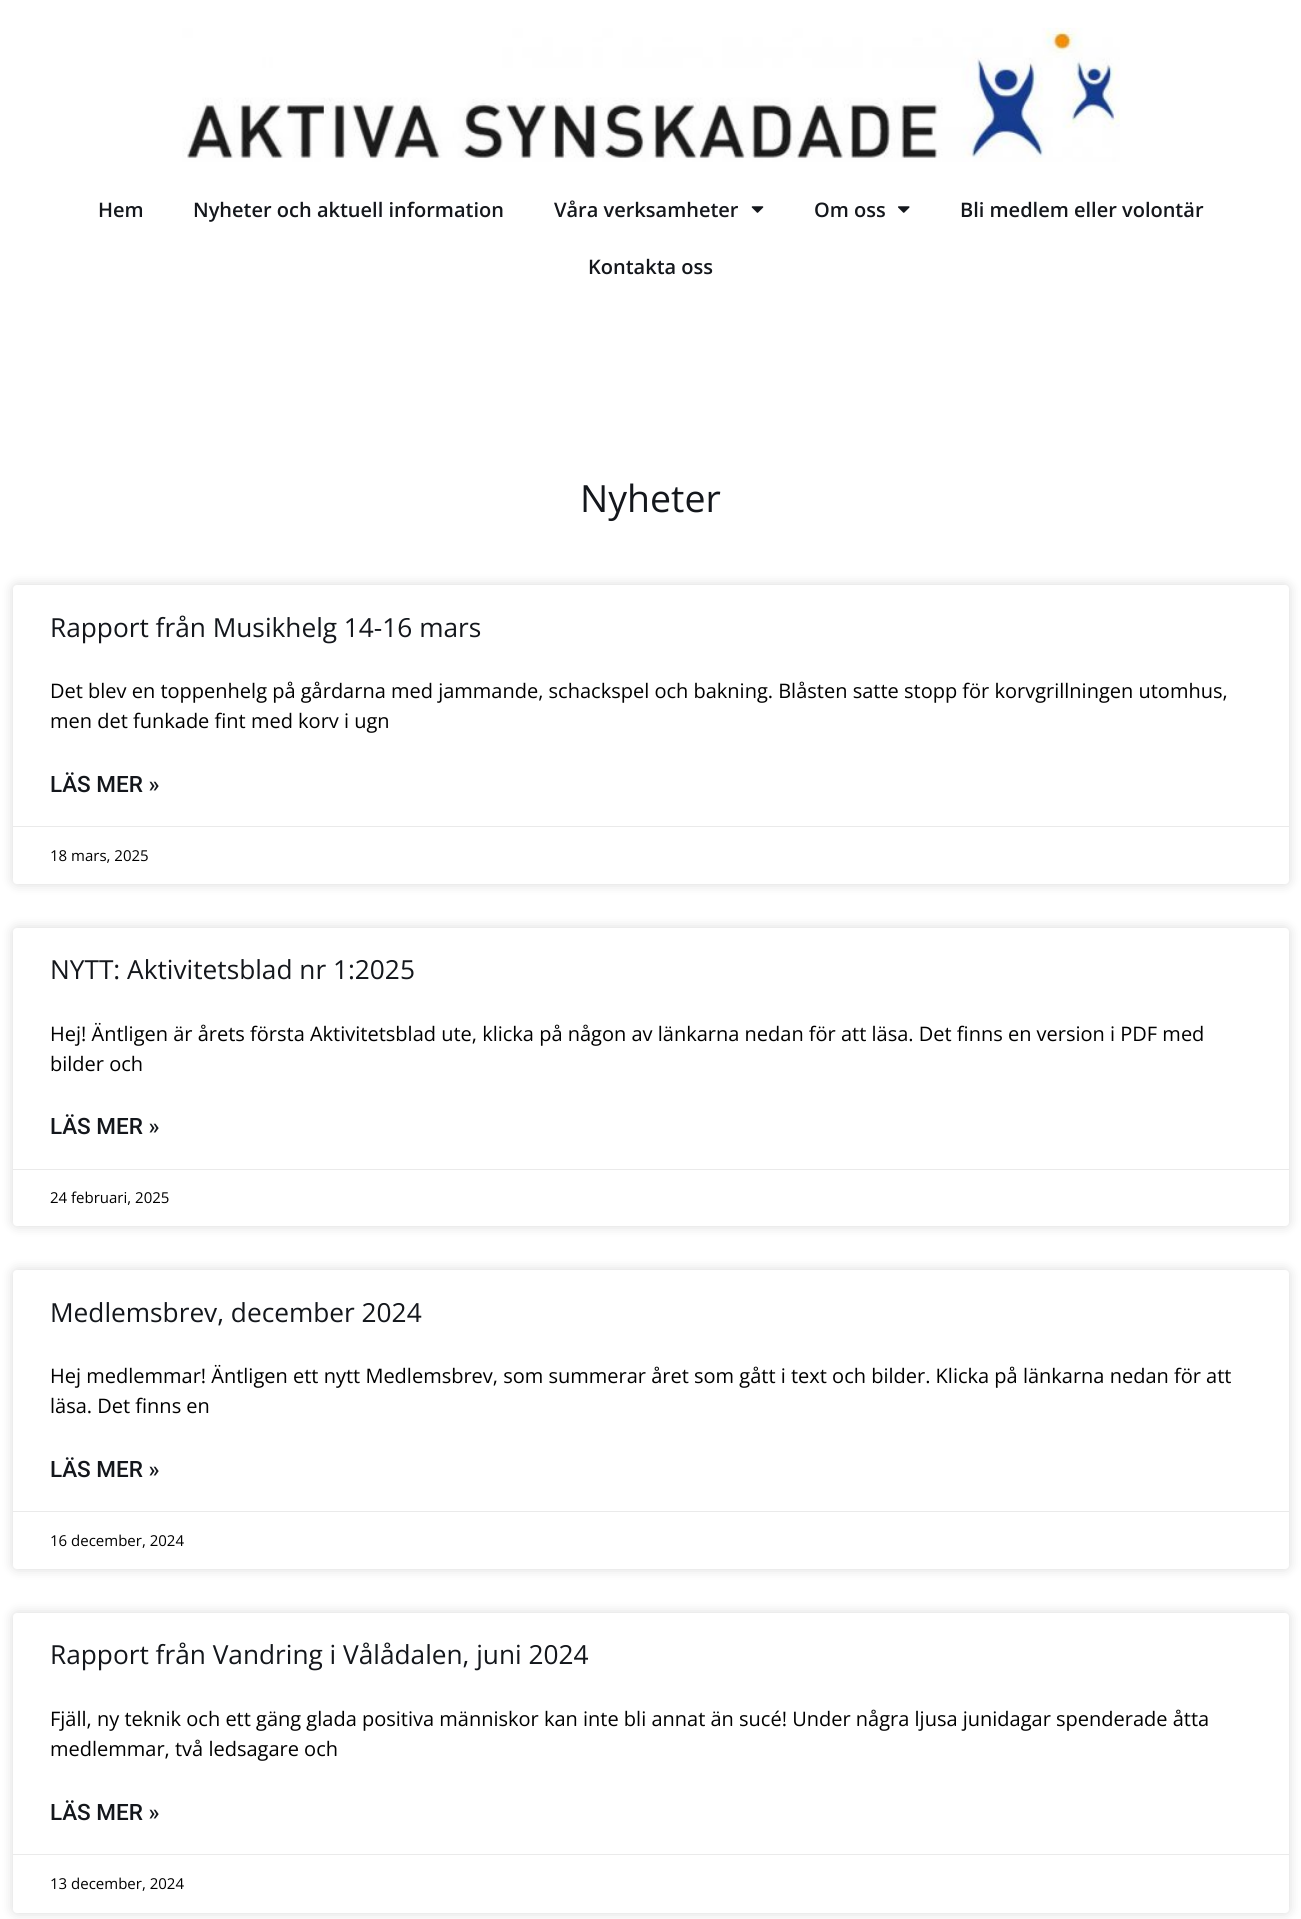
#include <cairo.h>
#include <math.h>
#include <stddef.h>

typedef struct { const char *family; double size; int italic, bold; unsigned color; } style_t;
static cairo_t *ctx;

static void ink(unsigned color) {
    cairo_set_source_rgb(ctx, (color >> 16) / 255.0, (color >> 8 & 255) / 255.0, (color & 255) / 255.0);
}

static void write(double x, double y, const char *s, const style_t *st) {
    cairo_select_font_face(ctx, st->family, st->italic ? CAIRO_FONT_SLANT_ITALIC : CAIRO_FONT_SLANT_NORMAL,
        st->bold ? CAIRO_FONT_WEIGHT_BOLD : CAIRO_FONT_WEIGHT_NORMAL);
    cairo_set_font_size(ctx, st->size);
    ink(st->color);
    cairo_move_to(ctx, x, y);
    cairo_show_text(ctx, s);
}

static void block(double x, double y, double w, double h, unsigned color) {
    ink(color);
    cairo_rectangle(ctx, x, y, w, h);
    cairo_fill(ctx);
}

static void round_path(double x, double y, double w, double h, double r) {
    cairo_new_sub_path(ctx);
    cairo_arc(ctx, x + w - r, y + h - r, r, 0, M_PI / 2);
    cairo_arc(ctx, x + r, y + h - r, r, M_PI / 2, M_PI);
    cairo_arc(ctx, x + r, y + r, r, M_PI, 1.5 * M_PI);
    cairo_arc(ctx, x + w - r, y + r, r, 1.5 * M_PI, 2 * M_PI);
    cairo_close_path(ctx);
}

static void blur_box(double x, double y, double w, double h, double r, double blur, double alpha) {
    cairo_push_group_with_content(ctx, CAIRO_CONTENT_ALPHA);
    cairo_set_operator(ctx, CAIRO_OPERATOR_SOURCE);
    for (int i = 15; i >= -15 && fmin(w, h) + blur * i / 3 > 0; i -= 2) {
        double e = blur * i / 6;
        cairo_set_source_rgba(ctx, 0, 0, 0, alpha * erfc((i - 1) / 8.5) / 2);
        round_path(x - e, y - e, w + 2 * e, h + 2 * e, fmax(0, fmin(r + e + blur * .6, fmin(w, h) / 2 + e)));
        cairo_fill(ctx);
    }
    cairo_pattern_t *soft = cairo_pop_group(ctx);
    cairo_mask(ctx, soft);
    cairo_pattern_destroy(soft);
}

static void paste(const char *path, double x, double y, double w, double h) {
    cairo_surface_t *image = cairo_image_surface_create_from_png(path);
    cairo_save(ctx);
    cairo_set_source_surface(ctx, image, x, y);
    cairo_rectangle(ctx, x, y, w, h);
    cairo_fill(ctx);
    cairo_restore(ctx);
    cairo_surface_destroy(image);
}

static const style_t s1 = {"Open Sans SemiBold", 20, 0, 0, 0x14171c};
static const style_t s2 = {"Open Sans", 37.5, 0, 0, 0x14171c};
static const style_t s3 = {"Open Sans", 26.25, 0, 0, 0x14171c};
static const style_t s4 = {"Open Sans", 20, 0, 0, 0x000000};
static const style_t s5 = {"Roboto Medium", 22.5, 0, 0, 0x14171c};
static const style_t s6 = {"Open Sans", 15, 0, 0, 0x000000};

int main(void) {
    cairo_surface_t *surface = cairo_image_surface_create(CAIRO_FORMAT_RGB24, 1301, 1919);
    ctx = cairo_create(surface);
    cairo_font_options_t *options = cairo_font_options_create();
    cairo_font_options_set_hint_metrics(options, CAIRO_HINT_METRICS_OFF);
    cairo_font_options_set_hint_style(options, CAIRO_HINT_STYLE_NONE);
    cairo_set_font_options(ctx, options);
    cairo_set_miter_limit(ctx, 4);
    ink(0xffffff);
    cairo_paint(ctx);
    paste("pic1.png", 182, 27, 938, 135);
    write(98, 217, "Hem", &s1);
    write(193, 217, "Nyheter och aktuell information", &s1);
    write(554, 217, "Våra verksamheter", &s1);
    paste("pic2.png", 751, 206, 13, 7);
    write(814, 217, "Om oss", &s1);
    paste("pic3.png", 898, 206, 12, 7);
    write(960, 217, "Bli medlem eller volontär", &s1);
    write(588, 274, "Kontakta oss", &s1);
    write(580, 512, "Nyheter", &s2);
    ink(0x000000);
    blur_box(13, 585, 1276, 299, 4, 6, 0.15);
    ink(0xffffff);
    round_path(13, 585, 1276, 299, 4);
    cairo_fill(ctx);
    write(50, 637, "Rapport från Musikhelg 14-16 mars", &s3);
    write(50, 698, "Det blev en toppenhelg på gårdarna med jammande, schackspel och bakning. Blåsten satte stopp för korvgrillningen utomhus,", &s4);
    write(50, 728, "men det funkade fint med korv i ugn", &s4);
    write(50, 792, "LÄS MER »", &s5);
    block(13, 826, 1276, 1, 0xeaeaea);
    write(50, 861, "18 mars, 2025", &s6);
    ink(0x000000);
    blur_box(13, 928, 1276, 298, 4, 6, 0.15);
    ink(0xffffff);
    round_path(13, 928, 1276, 298, 4);
    cairo_fill(ctx);
    write(50, 979, "NYTT: Aktivitetsblad nr 1:2025", &s3);
    write(50, 1041, "Hej! Äntligen är årets första Aktivitetsblad ute, klicka på någon av länkarna nedan för att läsa. Det finns en version i PDF med", &s4);
    write(50, 1071, "bilder och", &s4);
    write(50, 1134, "LÄS MER »", &s5);
    block(13, 1169, 1276, 1, 0xeaeaea);
    write(50, 1203, "24 februari, 2025", &s6);
    ink(0x000000);
    blur_box(13, 1270, 1276, 299, 4, 6, 0.15);
    ink(0xffffff);
    round_path(13, 1270, 1276, 299, 4);
    cairo_fill(ctx);
    write(50, 1322, "Medlemsbrev, december 2024", &s3);
    write(50, 1383, "Hej medlemmar! Äntligen ett nytt Medlemsbrev, som summerar året som gått i text och bilder. Klicka på länkarna nedan för att", &s4);
    write(50, 1413, "läsa. Det finns en", &s4);
    write(50, 1477, "LÄS MER »", &s5);
    block(13, 1511, 1276, 1, 0xeaeaea);
    write(50, 1546, "16 december, 2024", &s6);
    ink(0x000000);
    blur_box(13, 1613, 1276, 300, 4, 6, 0.15);
    ink(0xffffff);
    round_path(13, 1613, 1276, 300, 4);
    cairo_fill(ctx);
    write(50, 1664, "Rapport från Vandring i Vålådalen, juni 2024", &s3);
    write(50, 1726, "Fjäll, ny teknik och ett gäng glada positiva människor kan inte bli annat än sucé! Under några ljusa junidagar spenderade åtta", &s4);
    write(50, 1756, "medlemmar, två ledsagare och", &s4);
    write(50, 1820, "LÄS MER »", &s5);
    block(13, 1854, 1276, 1, 0xeaeaea);
    write(50, 1889, "13 december, 2024", &s6);
    cairo_surface_write_to_png(surface, "screenshot.png");
    cairo_font_options_destroy(options);
    cairo_destroy(ctx);
    cairo_surface_destroy(surface);
    return 0;
}
